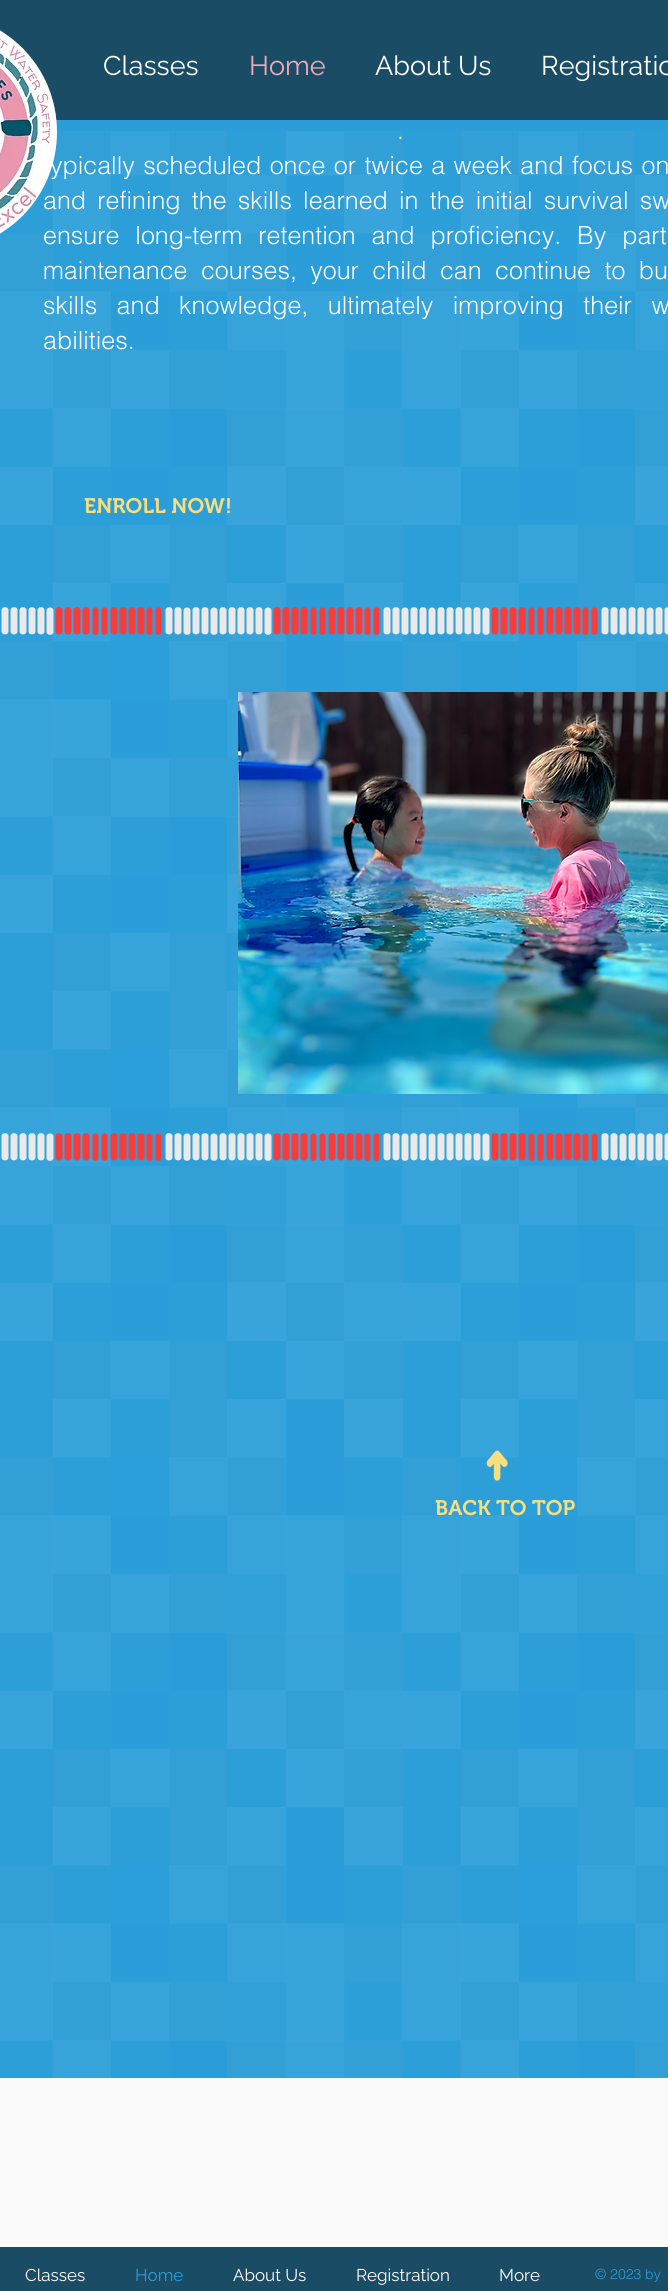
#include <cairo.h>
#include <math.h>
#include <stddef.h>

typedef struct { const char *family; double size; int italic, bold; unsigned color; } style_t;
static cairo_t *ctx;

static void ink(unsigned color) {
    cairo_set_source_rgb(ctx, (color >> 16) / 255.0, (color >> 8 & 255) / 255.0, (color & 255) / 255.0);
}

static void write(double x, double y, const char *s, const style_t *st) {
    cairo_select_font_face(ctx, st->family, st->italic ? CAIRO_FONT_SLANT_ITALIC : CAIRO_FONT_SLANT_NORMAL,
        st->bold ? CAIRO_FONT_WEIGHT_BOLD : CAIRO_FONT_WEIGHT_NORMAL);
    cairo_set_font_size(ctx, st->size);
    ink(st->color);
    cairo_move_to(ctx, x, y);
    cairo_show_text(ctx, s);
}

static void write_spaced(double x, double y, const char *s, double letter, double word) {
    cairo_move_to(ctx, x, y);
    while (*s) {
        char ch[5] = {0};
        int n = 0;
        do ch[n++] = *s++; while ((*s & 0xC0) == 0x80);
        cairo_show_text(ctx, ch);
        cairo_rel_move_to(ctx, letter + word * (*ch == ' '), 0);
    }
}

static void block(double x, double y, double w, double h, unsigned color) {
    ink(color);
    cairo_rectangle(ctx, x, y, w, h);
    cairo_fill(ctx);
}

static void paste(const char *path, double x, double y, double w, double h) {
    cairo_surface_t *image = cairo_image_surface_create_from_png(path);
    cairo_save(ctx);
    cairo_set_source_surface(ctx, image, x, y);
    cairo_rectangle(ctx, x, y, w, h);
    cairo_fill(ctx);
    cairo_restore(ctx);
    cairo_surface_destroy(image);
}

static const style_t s1 = {"Raleway", 27, 0, 0, 0xffffff};
static const style_t s2 = {"Raleway", 27, 0, 0, 0xf2aab6};
static const style_t s3 = {"helvetica Light", 25, 0, 0, 0xffffff};
static const style_t s4 = {"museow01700 SemiBold", 21, 0, 0, 0xf8df7c};
static const style_t s5 = {"Raleway", 17, 0, 0, 0xffffff};
static const style_t s6 = {"Raleway", 17, 0, 0, 0x2b9ed9};
static const style_t s7 = {"helvetica Light", 14, 0, 0, 0x2b9ed9};

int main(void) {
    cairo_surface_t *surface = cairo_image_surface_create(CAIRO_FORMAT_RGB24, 668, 2291);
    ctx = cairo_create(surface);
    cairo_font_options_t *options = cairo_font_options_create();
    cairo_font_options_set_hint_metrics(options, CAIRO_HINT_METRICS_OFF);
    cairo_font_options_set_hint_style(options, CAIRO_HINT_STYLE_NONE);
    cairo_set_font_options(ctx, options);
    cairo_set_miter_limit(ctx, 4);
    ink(0x2b9ed9);
    cairo_paint(ctx);
    block(0, 0, 668, 120, 0x1a4c66);
    paste("pic6.png", 0, 131, 668, 1947);
    cairo_select_font_face(ctx, "helvetica Light", CAIRO_FONT_SLANT_NORMAL, CAIRO_FONT_WEIGHT_NORMAL);
    cairo_set_font_size(ctx, 25);
    ink(0xffffff);
    write_spaced(50, 174, "ypically scheduled once or twice a week and focus on", 0, 1.5);
    write_spaced(43, 209, "and refining the skills learned in the initial survival sw", 0, 4.25);
    write_spaced(43, 244, "ensure long-term retention and proficiency. By part", 0, 9);
    paste("pic1.png", 0, 30, 57, 204);
    write(103, 75, "Classes", &s1);
    write(249, 75, "Home", &s2);
    write(375, 75, "About Us", &s1);
    write(541, 75, "Registratio", &s1);
    cairo_select_font_face(ctx, "helvetica Light", CAIRO_FONT_SLANT_NORMAL, CAIRO_FONT_WEIGHT_NORMAL);
    cairo_set_font_size(ctx, 25);
    write_spaced(397, 139, ".", 0, 7);
    write_spaced(43, 279, "maintenance courses, your child can continue to bu", 0, 6.5);
    write_spaced(43, 314, "skills and knowledge, ultimately improving their w", 0, 12.5);
    write(43, 349, "abilities.", &s3);
    write(84, 513, "ENROLL NOW!", &s4);
    paste("pic2.png", 1, 607, 667, 28);
    paste("pic3.png", 238, 692, 430, 402);
    paste("pic4.png", 1, 1133, 667, 28);
    paste("pic5.png", 486, 1450, 22, 31);
    write(435, 1515, "BACK TO TOP", &s4);
    block(0, 2078, 668, 169, 0xfafafa);
    block(0, 2247, 668, 44, 0x1a4c66);
    write(25, 2281, "Classes", &s5);
    write(135, 2281, "Home", &s6);
    write(233, 2281, "About Us", &s5);
    write(356, 2281, "Registration", &s5);
    write(499, 2281, "More", &s5);
    write(595, 2279, "© 2023 by", &s7);
    cairo_surface_write_to_png(surface, "screenshot.png");
    cairo_font_options_destroy(options);
    cairo_destroy(ctx);
    cairo_surface_destroy(surface);
    return 0;
}
